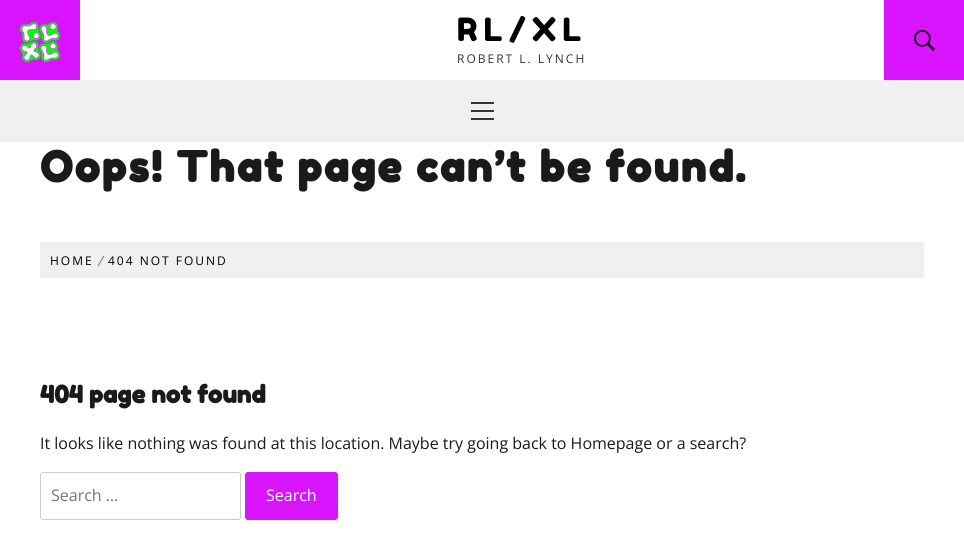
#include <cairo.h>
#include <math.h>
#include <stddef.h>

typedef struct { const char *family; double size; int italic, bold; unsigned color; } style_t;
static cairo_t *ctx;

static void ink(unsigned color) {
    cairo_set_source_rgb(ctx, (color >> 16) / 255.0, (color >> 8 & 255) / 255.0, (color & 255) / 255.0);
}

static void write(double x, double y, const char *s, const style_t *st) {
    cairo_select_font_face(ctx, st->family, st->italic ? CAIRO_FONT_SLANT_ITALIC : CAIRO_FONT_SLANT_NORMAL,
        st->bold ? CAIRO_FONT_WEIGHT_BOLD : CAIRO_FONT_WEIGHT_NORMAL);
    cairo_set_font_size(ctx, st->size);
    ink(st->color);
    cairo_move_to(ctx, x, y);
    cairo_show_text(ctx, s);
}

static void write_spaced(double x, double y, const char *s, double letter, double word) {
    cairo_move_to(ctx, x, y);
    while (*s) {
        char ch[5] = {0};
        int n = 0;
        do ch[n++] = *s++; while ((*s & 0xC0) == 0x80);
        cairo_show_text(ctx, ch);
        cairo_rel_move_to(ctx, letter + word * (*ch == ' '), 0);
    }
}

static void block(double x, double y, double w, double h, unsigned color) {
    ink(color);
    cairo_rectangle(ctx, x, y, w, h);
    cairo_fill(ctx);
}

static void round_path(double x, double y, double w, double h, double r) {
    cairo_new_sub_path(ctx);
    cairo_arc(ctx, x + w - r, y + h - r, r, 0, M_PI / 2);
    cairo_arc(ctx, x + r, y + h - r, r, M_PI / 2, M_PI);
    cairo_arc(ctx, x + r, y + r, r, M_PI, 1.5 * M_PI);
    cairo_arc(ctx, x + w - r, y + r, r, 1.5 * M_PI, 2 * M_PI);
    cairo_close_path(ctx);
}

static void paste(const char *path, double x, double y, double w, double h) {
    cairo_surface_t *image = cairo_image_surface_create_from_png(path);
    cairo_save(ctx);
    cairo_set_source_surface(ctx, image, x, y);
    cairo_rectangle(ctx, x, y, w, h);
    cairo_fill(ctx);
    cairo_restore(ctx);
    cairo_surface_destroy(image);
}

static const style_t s1 = {"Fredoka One", 24, 0, 1, 0x1a1a1a};
static const style_t s2 = {"Open Sans", 16, 0, 0, 0x1a1a1a};
static const style_t s3 = {"Open Sans", 16, 0, 0, 0x757575};
static const style_t s4 = {"Open Sans", 16, 0, 0, 0xffffff};

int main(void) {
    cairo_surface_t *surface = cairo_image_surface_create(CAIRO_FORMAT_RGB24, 964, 550);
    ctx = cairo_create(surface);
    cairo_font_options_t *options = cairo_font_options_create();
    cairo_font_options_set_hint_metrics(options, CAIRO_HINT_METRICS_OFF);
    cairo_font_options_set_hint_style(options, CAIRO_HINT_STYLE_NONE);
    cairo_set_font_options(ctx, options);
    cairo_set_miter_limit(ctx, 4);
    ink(0xffffff);
    cairo_paint(ctx);
    block(0, 80, 964, 62, 0xf0f0f0);
    block(0, 0, 80, 80, 0xd914fe);
    paste("pic1.png", 20, 22, 40, 40);
    cairo_select_font_face(ctx, "Fredoka One", CAIRO_FONT_SLANT_NORMAL, CAIRO_FONT_WEIGHT_NORMAL);
    cairo_set_font_size(ctx, 32);
    ink(0x000000);
    write_spaced(457, 41, "RL/XL", 6.5, 0);
    cairo_select_font_face(ctx, "Open Sans", CAIRO_FONT_SLANT_NORMAL, CAIRO_FONT_WEIGHT_NORMAL);
    cairo_set_font_size(ctx, 12);
    ink(0x333333);
    write_spaced(457, 63, "ROBERT L. LYNCH", 2, 0);
    block(884, 0, 80, 80, 0xd914fe);
    paste("pic2.png", 914, 30, 21, 21);
    block(471, 110, 23, 2, 0x333333);
    block(471, 102, 23, 2, 0x333333);
    block(471, 118, 23, 2, 0x333333);
    cairo_select_font_face(ctx, "Fredoka One", CAIRO_FONT_SLANT_NORMAL, CAIRO_FONT_WEIGHT_BOLD);
    cairo_set_font_size(ctx, 42);
    ink(0x1a1a1a);
    write_spaced(40, 182, "Oops! That page can’t be found.", 2, 0);
    block(40, 242, 884, 36, 0xf0f0f0);
    cairo_select_font_face(ctx, "Open Sans", CAIRO_FONT_SLANT_NORMAL, CAIRO_FONT_WEIGHT_NORMAL);
    cairo_set_font_size(ctx, 12);
    ink(0x000000);
    write_spaced(50, 265, "HOME", 2, 0);
    ink(0x848484);
    cairo_new_path(ctx);
    cairo_move_to(ctx, 103.5, 255.5);
    cairo_line_to(ctx, 104.5, 256);
    cairo_line_to(ctx, 98.5, 266.5);
    cairo_line_to(ctx, 97.5, 266);
    cairo_close_path(ctx);
    cairo_fill(ctx);
    ink(0x000000);
    write_spaced(108, 265, "404 NOT FOUND", 2, 0);
    write(40, 403, "404 page not found", &s1);
    write(40, 449, "It looks like nothing was found at this location. Maybe try going back to Homepage or a search?", &s2);
    round_path(40.5, 472.5, 200, 47, 2.5);
    ink(0xcccccc);
    cairo_set_line_width(ctx, 1);
    cairo_stroke(ctx);
    write(51, 501, "Search …", &s3);
    ink(0xd914fe);
    round_path(245.5, 472.5, 92, 47, 2.5);
    cairo_fill_preserve(ctx);
    cairo_stroke(ctx);
    write(266, 501, "Search", &s4);
    cairo_surface_write_to_png(surface, "screenshot.png");
    cairo_font_options_destroy(options);
    cairo_destroy(ctx);
    cairo_surface_destroy(surface);
    return 0;
}
